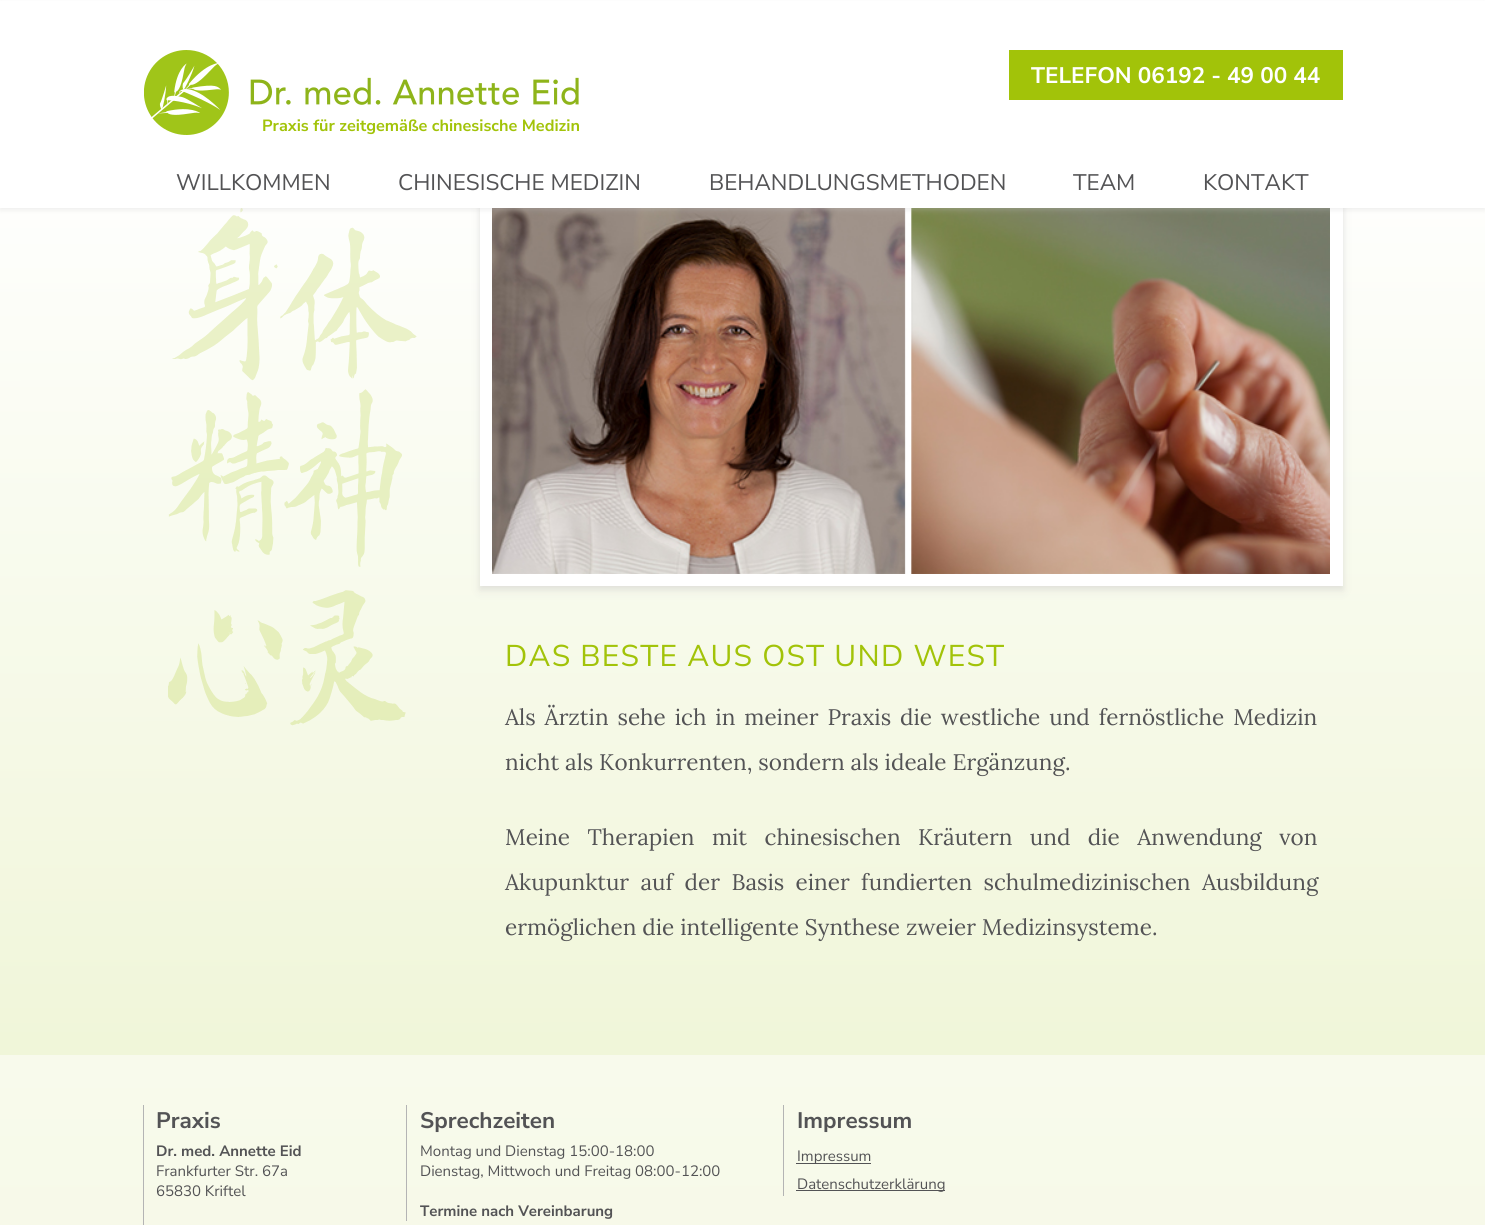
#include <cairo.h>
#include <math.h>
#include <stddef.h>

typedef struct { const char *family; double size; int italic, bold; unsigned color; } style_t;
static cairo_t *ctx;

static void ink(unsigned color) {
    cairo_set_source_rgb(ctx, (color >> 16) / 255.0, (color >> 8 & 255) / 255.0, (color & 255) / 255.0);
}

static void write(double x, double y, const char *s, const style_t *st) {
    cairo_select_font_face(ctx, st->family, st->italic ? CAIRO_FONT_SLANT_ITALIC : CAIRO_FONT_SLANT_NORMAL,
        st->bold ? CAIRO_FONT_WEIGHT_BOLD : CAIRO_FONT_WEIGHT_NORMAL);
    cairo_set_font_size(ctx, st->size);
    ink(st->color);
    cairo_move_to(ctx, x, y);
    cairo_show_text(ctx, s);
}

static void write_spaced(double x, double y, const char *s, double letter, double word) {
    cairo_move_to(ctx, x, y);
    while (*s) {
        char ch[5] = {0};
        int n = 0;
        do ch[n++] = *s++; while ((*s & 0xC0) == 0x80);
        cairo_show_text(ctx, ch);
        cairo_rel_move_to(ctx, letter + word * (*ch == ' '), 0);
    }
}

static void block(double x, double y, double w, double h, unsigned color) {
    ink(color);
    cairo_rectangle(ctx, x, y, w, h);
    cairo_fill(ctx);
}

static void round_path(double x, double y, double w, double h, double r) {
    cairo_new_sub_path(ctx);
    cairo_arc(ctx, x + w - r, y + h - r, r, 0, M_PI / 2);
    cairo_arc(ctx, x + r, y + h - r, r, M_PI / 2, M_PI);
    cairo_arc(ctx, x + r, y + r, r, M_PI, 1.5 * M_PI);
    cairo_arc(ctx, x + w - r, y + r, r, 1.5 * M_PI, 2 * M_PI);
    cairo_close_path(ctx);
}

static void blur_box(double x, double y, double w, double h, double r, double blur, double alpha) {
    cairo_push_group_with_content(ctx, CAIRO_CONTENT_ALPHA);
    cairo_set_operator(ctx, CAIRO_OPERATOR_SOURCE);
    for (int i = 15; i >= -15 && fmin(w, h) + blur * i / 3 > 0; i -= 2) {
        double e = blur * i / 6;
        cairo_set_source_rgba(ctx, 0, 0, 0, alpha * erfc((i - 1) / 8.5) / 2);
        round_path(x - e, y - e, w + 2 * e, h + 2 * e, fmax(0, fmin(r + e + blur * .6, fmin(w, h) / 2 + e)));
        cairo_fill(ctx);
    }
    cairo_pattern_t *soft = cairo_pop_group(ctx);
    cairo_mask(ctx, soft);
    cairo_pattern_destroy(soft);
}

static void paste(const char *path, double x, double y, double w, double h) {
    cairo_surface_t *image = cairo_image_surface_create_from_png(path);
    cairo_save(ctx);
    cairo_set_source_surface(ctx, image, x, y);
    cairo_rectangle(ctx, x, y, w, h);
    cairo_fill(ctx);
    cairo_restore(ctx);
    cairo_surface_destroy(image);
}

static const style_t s1 = {"Nunito Sans", 22.5, 0, 1, 0xffffff};
static const style_t s2 = {"Nunito Sans", 16.25, 0, 1, 0xa2c309};
static const style_t s3 = {"Nunito Sans", 22.5, 0, 0, 0x535355};
static const style_t s4 = {"Lora", 22.5, 0, 0, 0x535355};
static const style_t s5 = {"Nunito Sans", 22.5, 0, 1, 0x535355};
static const style_t s6 = {"Nunito Sans", 15, 0, 1, 0x535355};
static const style_t s7 = {"Nunito Sans", 15, 0, 0, 0x535355};

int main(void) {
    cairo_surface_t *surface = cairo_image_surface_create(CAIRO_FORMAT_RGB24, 1485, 1225);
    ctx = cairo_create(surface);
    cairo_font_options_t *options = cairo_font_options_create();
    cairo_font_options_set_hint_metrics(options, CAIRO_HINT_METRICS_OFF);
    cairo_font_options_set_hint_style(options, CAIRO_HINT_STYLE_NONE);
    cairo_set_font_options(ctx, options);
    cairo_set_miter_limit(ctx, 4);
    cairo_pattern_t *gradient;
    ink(0xffffff);
    cairo_paint(ctx);
    gradient = cairo_pattern_create_linear(742, 136, 743, 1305);
    cairo_pattern_add_color_stop_rgba(gradient, 0, 1, 1, 1, 1);
    cairo_pattern_add_color_stop_rgba(gradient, 1, 0.925, 0.953, 0.808, 1);
    cairo_set_source(ctx, gradient);
    cairo_pattern_destroy(gradient);
    cairo_rectangle(ctx, 0, 208, 1485, 847);
    cairo_fill(ctx);
    gradient = cairo_pattern_create_linear(742, 136, 743, 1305);
    cairo_pattern_add_color_stop_rgba(gradient, 0, 1, 1, 1, 1);
    cairo_pattern_add_color_stop_rgba(gradient, 1, 0.965, 0.976, 0.906, 1);
    cairo_set_source(ctx, gradient);
    cairo_pattern_destroy(gradient);
    cairo_rectangle(ctx, 0, 1055, 1485, 170);
    cairo_fill(ctx);
    ink(0xc8c8c8);
    blur_box(480, 189, 863, 400, 0, 2.5, 0.3);
    blur_box(480, 191, 863, 400, 0, 5, 0.3);
    cairo_rectangle(ctx, 486.5, 192.5, 850, 387);
    ink(0xffffff);
    cairo_set_line_width(ctx, 13);
    cairo_stroke(ctx);
    paste("pic2.png", 492, 208, 838, 366);
    paste("pic3.png", 168, 208, 249, 518);
    ink(0xc8c8c8);
    blur_box(0, 3, 1485, 207, 0, 2.5, 0.3);
    block(0, 1, 1485, 207, 0xffffff);
    block(1009, 50, 334, 50, 0xa2c309);
    write(1031, 83, "TELEFON 06192 - 49 00 44", &s1);
    paste("pic1.png", 144, 50, 435, 85);
    write(262, 131, "Praxis für zeitgemäße chinesische Medizin", &s2);
    write(176, 190, "WILLKOMMEN", &s3);
    write(398, 190, "CHINESISCHE MEDIZIN", &s3);
    write(709, 190, "BEHANDLUNGSMETHODEN", &s3);
    write(1073, 190, "TEAM", &s3);
    write(1203, 190, "KONTAKT", &s3);
    cairo_set_font_size(ctx, 30);
    ink(0xa2c309);
    write_spaced(505, 666, "DAS BESTE AUS OST UND WEST", 1.25, 0);
    cairo_select_font_face(ctx, "Lora", CAIRO_FONT_SLANT_NORMAL, CAIRO_FONT_WEIGHT_NORMAL);
    cairo_set_font_size(ctx, 22.5);
    ink(0x535355);
    write_spaced(505, 725, "Als Ärztin sehe ich in meiner Praxis die westliche und fernöstliche Medizin", 0, 3);
    write(505, 770, "nicht als Konkurrenten, sondern als ideale Ergänzung.", &s4);
    write_spaced(505, 845, "Meine Therapien mit chinesischen Kräutern und die Anwendung von", 0, 11.5);
    write_spaced(505, 890, "Akupunktur auf der Basis einer fundierten schulmedizinischen Ausbildung", 0, 5.5);
    write(505, 935, "ermöglichen die intelligente Synthese zweier Medizinsysteme.", &s4);
    block(143, 1105, 1, 120, 0xb4b4b4);
    write(156, 1128, "Praxis", &s5);
    write(156, 1156, "Dr. med. Annette Eid", &s6);
    write(156, 1176, "Frankfurter Str. 67a", &s7);
    write(156, 1196, "65830 Kriftel", &s7);
    block(406, 1105, 1, 116, 0xb4b4b4);
    write(420, 1128, "Sprechzeiten", &s5);
    write(420, 1156, "Montag und Dienstag 15:00-18:00", &s7);
    write(420, 1176, "Dienstag, Mittwoch und Freitag 08:00-12:00", &s7);
    write(420, 1216, "Termine nach Vereinbarung", &s6);
    block(783, 1105, 1, 91, 0xb4b4b4);
    write(797, 1128, "Impressum", &s5);
    block(796, 1163, 75, 1, 0x535355);
    write(797, 1161, "Impressum", &s7);
    block(796, 1190, 149, 1, 0x535355);
    write(797, 1189, "Datenschutzerklärung", &s7);
    cairo_surface_write_to_png(surface, "screenshot.png");
    cairo_font_options_destroy(options);
    cairo_destroy(ctx);
    cairo_surface_destroy(surface);
    return 0;
}
